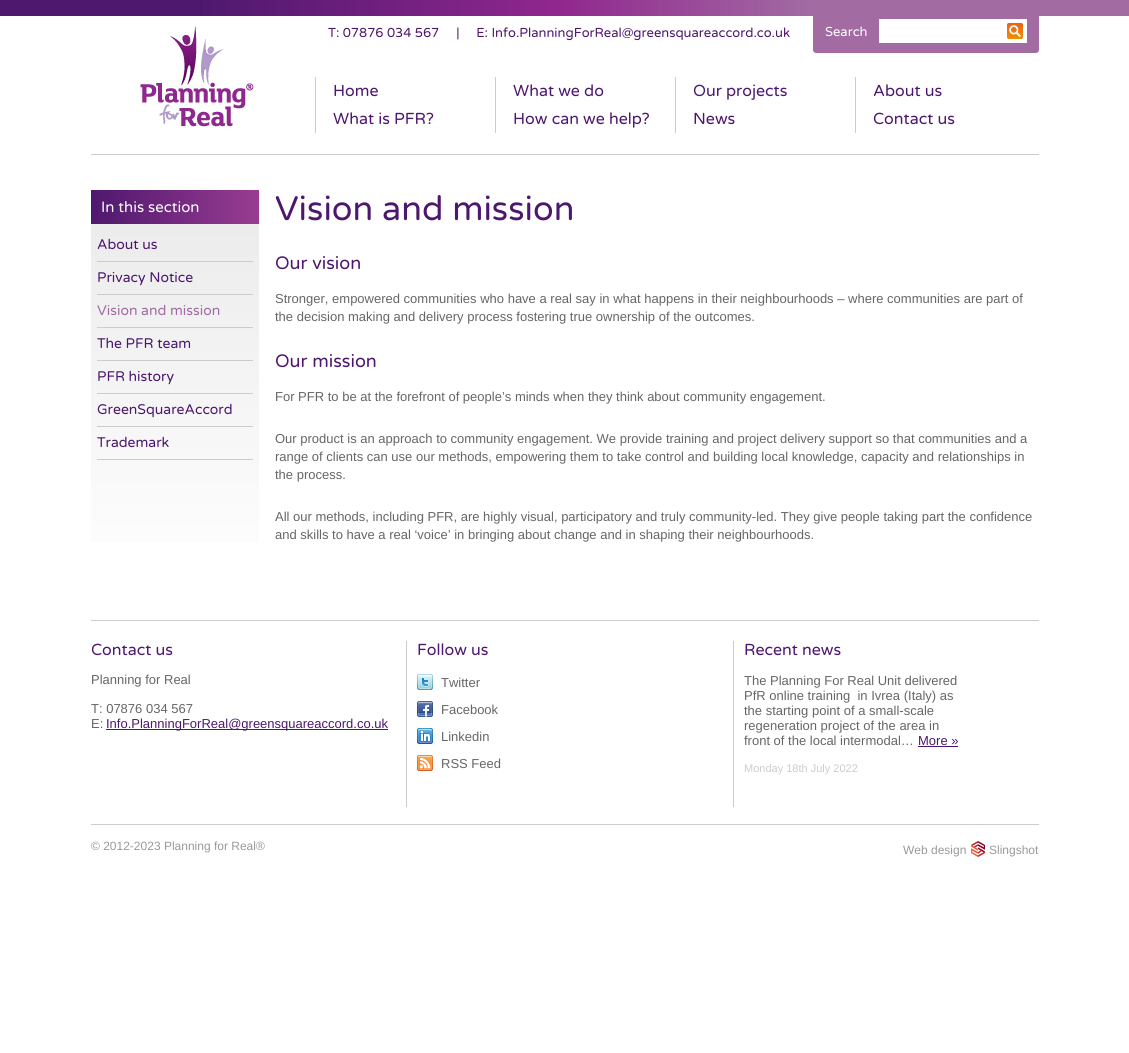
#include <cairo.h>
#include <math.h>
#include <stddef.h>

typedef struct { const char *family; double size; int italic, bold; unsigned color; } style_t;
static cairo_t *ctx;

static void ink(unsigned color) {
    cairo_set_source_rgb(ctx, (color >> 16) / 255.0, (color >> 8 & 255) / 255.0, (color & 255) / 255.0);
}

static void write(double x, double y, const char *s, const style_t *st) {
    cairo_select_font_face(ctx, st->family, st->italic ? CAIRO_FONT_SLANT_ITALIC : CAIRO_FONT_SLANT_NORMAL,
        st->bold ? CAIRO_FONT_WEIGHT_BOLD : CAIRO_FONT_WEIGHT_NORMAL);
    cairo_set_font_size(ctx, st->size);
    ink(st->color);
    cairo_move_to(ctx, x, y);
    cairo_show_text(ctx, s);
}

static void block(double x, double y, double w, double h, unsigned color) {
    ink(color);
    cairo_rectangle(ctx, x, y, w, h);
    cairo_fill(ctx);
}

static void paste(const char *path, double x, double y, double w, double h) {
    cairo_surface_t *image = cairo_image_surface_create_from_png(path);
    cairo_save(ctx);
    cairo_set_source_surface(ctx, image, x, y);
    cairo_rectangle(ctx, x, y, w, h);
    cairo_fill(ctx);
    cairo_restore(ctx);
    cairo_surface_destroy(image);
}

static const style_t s1 = {"Varela Round", 13, 0, 0, 0x4d176d};
static const style_t s2 = {"Varela Round", 13, 0, 0, 0xffffff};
static const style_t s3 = {"Varela Round", 16, 0, 0, 0x4d176d};
static const style_t s4 = {"Varela Round", 15, 0, 0, 0xffffff};
static const style_t s5 = {"Varela Round", 14, 0, 0, 0x4d176d};
static const style_t s6 = {"Varela Round", 14, 0, 0, 0xa26ca3};
static const style_t s7 = {"Varela Round", 34, 0, 0, 0x4d176d};
static const style_t s8 = {"Varela Round", 18, 0, 0, 0x4d176d};
static const style_t s9 = {"Liberation Sans", 13, 0, 0, 0x666666};
static const style_t s10 = {"Liberation Sans", 13, 0, 0, 0x4d176d};
static const style_t s11 = {"Liberation Sans", 11, 0, 0, 0xcccccc};
static const style_t s12 = {"Liberation Sans", 12, 0, 0, 0x999999};

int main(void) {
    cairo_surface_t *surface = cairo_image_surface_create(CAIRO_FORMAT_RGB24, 1129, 1053);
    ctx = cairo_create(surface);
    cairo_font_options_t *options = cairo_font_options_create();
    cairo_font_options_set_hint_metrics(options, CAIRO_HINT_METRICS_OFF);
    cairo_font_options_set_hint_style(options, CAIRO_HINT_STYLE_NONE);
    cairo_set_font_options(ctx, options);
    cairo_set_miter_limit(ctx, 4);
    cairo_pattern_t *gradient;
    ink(0xffffff);
    cairo_paint(ctx);
    paste("pic1.png", 0, 0, 1129, 16);
    block(91, 154, 948, 1, 0xcccccc);
    paste("pic2.png", 140, 26, 114, 102);
    write(328, 37, "T: 07876 034 567     |     E: Info.PlanningForReal@greensquareaccord.co.uk", &s1);
    ink(0xa26ba2);
    cairo_new_path(ctx);
    cairo_move_to(ctx, 813, 15);
    cairo_line_to(ctx, 1039, 15);
    cairo_line_to(ctx, 1039, 50);
    cairo_curve_to(ctx, 1039, 51.5, 1037.5, 53, 1036, 53);
    cairo_line_to(ctx, 816, 53);
    cairo_curve_to(ctx, 814.5, 53, 813, 51.5, 813, 50);
    cairo_close_path(ctx);
    cairo_fill(ctx);
    block(879, 19, 148, 24, 0xffffff);
    write(825, 36, "Search", &s2);
    paste("pic3.png", 1007, 23, 16, 16);
    block(315, 77, 1, 56, 0xcccccc);
    write(333, 96, "Home", &s3);
    block(495, 77, 1, 56, 0xcccccc);
    write(513, 96, "What we do", &s3);
    block(675, 77, 1, 56, 0xcccccc);
    write(693, 96, "Our projects", &s3);
    block(855, 77, 1, 56, 0xcccccc);
    write(873, 96, "About us", &s3);
    write(333, 124, "What is PFR?", &s3);
    write(513, 124, "How can we help?", &s3);
    write(693, 124, "News", &s3);
    write(873, 124, "Contact us", &s3);
    gradient = cairo_pattern_create_linear(175, 190, 175, 590);
    cairo_pattern_add_color_stop_rgba(gradient, 0, 0.918, 0.918, 0.918, 1);
    cairo_pattern_add_color_stop_rgba(gradient, 1, 1, 1, 1, 1);
    cairo_set_source(ctx, gradient);
    cairo_pattern_destroy(gradient);
    cairo_rectangle(ctx, 91, 224, 168, 318);
    cairo_fill(ctx);
    gradient = cairo_pattern_create_linear(91, 207, 259, 207);
    cairo_pattern_add_color_stop_rgba(gradient, 0, 0.306, 0.094, 0.431, 1);
    cairo_pattern_add_color_stop_rgba(gradient, 1, 0.596, 0.235, 0.569, 1);
    cairo_set_source(ctx, gradient);
    cairo_pattern_destroy(gradient);
    cairo_rectangle(ctx, 91, 190, 168, 34);
    cairo_fill(ctx);
    write(101, 212, "In this section", &s4);
    block(97, 261, 156, 1, 0xcccccc);
    write(97, 249, "About us", &s5);
    block(97, 294, 156, 1, 0xcccccc);
    write(97, 282, "Privacy Notice", &s5);
    block(97, 327, 156, 1, 0xcccccc);
    write(97, 315, "Vision and mission", &s6);
    block(97, 360, 156, 1, 0xcccccc);
    write(97, 348, "The PFR team", &s5);
    block(97, 393, 156, 1, 0xcccccc);
    write(97, 381, "PFR history", &s5);
    block(97, 426, 156, 1, 0xcccccc);
    write(97, 414, "GreenSquareAccord", &s5);
    block(97, 459, 156, 1, 0xcccccc);
    write(97, 447, "Trademark", &s5);
    write(275, 220, "Vision and mission", &s7);
    write(275, 269, "Our vision", &s8);
    write(275, 303, "Stronger, empowered communities who have a real say in what happens in their neighbourhoods – where communities are part of", &s9);
    write(275, 321, "the decision making and delivery process fostering true ownership of the outcomes.", &s9);
    write(275, 367, "Our mission", &s8);
    write(275, 401, "For PFR to be at the forefront of people’s minds when they think about community engagement.", &s9);
    write(275, 443, "Our product is an approach to community engagement. We provide training and project delivery support so that communities and a", &s9);
    write(275, 461, "range of clients can use our methods, empowering them to take control and building local knowledge, capacity and relationships in", &s9);
    write(275, 479, "the process.", &s9);
    write(275, 521, "All our methods, including PFR, are highly visual, participatory and truly community-led. They give people taking part the confidence", &s9);
    write(275, 539, "and skills to have a real ‘voice’ in bringing about change and in shaping their neighbourhoods.", &s9);
    block(91, 620, 948, 1, 0xcccccc);
    block(406, 641, 1, 166, 0xcccccc);
    write(91, 655, "Contact us", &s3);
    write(91, 684, "Planning for Real", &s9);
    write(91, 713, "T: 07876 034 567", &s9);
    write(91, 728, "E:", &s9);
    block(106, 729, 282, 1, 0x4d176d);
    write(106, 728, "Info.PlanningForReal@greensquareaccord.co.uk", &s10);
    block(733, 641, 1, 166, 0xcccccc);
    write(417, 655, "Follow us", &s3);
    paste("pic4.png", 417, 674, 16, 16);
    write(441, 687, "Twitter", &s9);
    paste("pic5.png", 417, 701, 16, 16);
    write(441, 714, "Facebook", &s9);
    paste("pic6.png", 417, 728, 16, 16);
    write(441, 741, "Linkedin", &s9);
    paste("pic7.png", 417, 755, 16, 16);
    write(441, 768, "RSS Feed", &s9);
    write(744, 655, "Recent news", &s3);
    write(744, 685, "The Planning For Real Unit delivered", &s9);
    write(744, 700, "PfR online training  in Ivrea (Italy) as", &s9);
    write(744, 715, "the starting point of a small-scale", &s9);
    write(744, 730, "regeneration project of the area in", &s9);
    write(744, 745, "front of the local intermodal…", &s9);
    write(918, 745, "More »", &s10);
    block(918, 746, 40, 1, 0x4d176d);
    write(744, 772, "Monday 18th July 2022", &s11);
    block(91, 824, 948, 1, 0xcccccc);
    write(91, 850, "© 2012-2023 Planning for Real®", &s12);
    write(903, 854, "Web design", &s12);
    paste("pic8.png", 971, 841, 14, 16);
    write(989, 854, "Slingshot", &s12);
    cairo_surface_write_to_png(surface, "screenshot.png");
    cairo_font_options_destroy(options);
    cairo_destroy(ctx);
    cairo_surface_destroy(surface);
    return 0;
}
